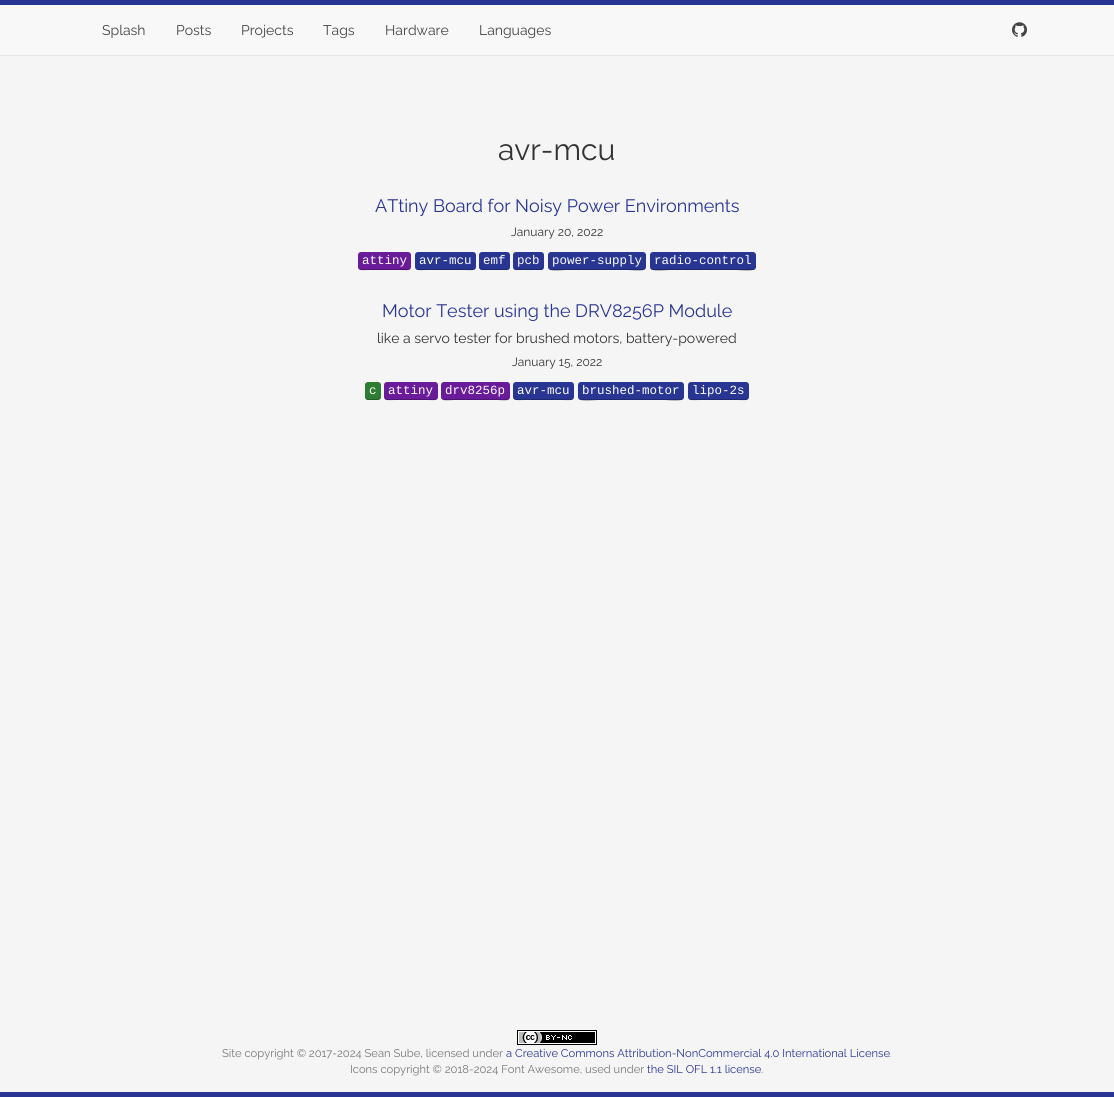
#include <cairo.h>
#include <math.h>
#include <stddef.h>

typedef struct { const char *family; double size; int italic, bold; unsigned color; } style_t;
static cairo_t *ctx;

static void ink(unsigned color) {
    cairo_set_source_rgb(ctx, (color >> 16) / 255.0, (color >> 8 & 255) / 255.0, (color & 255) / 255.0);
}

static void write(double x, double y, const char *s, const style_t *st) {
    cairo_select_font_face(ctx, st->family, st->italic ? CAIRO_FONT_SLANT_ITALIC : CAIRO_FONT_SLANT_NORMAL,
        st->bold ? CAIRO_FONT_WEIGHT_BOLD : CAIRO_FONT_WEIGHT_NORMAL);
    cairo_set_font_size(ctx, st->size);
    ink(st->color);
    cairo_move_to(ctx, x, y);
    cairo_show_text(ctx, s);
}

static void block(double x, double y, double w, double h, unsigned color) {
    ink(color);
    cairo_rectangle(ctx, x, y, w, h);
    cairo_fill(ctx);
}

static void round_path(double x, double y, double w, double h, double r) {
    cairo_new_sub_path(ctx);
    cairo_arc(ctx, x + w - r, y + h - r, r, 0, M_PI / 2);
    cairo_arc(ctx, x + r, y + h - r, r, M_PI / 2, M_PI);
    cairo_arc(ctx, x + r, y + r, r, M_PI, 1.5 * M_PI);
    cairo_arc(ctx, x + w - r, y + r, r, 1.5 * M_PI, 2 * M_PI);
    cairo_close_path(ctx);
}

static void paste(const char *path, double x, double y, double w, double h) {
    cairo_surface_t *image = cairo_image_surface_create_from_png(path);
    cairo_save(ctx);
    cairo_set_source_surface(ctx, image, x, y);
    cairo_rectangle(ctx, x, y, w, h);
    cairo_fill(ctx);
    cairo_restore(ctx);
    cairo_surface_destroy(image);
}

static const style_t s1 = {"Raleway Thin", 14, 0, 0, 0x444444};
static const style_t s2 = {"Raleway Thin", 30, 0, 0, 0x333333};
static const style_t s3 = {"Raleway Thin", 18, 0, 0, 0x283593};
static const style_t s4 = {"Raleway Thin", 12, 0, 0, 0x333333};
static const style_t s5 = {"Liberation Mono", 12.5, 0, 0, 0xffffff};
static const style_t s6 = {"Raleway Thin", 14, 0, 0, 0x333333};
static const style_t s7 = {"Raleway Thin", 11.2, 0, 0, 0x777777};
static const style_t s8 = {"Raleway Thin", 11.2, 0, 0, 0x283593};

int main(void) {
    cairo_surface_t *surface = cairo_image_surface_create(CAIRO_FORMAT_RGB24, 1114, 1097);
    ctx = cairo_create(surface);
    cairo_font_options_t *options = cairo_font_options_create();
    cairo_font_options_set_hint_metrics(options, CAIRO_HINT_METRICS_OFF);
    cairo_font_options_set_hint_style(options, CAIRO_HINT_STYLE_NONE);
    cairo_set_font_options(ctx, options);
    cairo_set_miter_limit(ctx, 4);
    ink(0xf5f5f5);
    cairo_paint(ctx);
    block(0, 5, 1114, 50, 0xf8f8f8);
    block(0, 0, 1114, 5, 0x283593);
    block(0, 55, 1114, 1, 0xe7e7e7);
    write(102, 35, "Splash", &s1);
    write(176, 35, "Posts", &s1);
    write(241, 35, "Projects", &s1);
    write(323, 35, "Tags", &s1);
    write(385, 35, "Hardware", &s1);
    write(479, 35, "Languages", &s1);
    paste("pic1.png", 1012, 22, 15, 15);
    write(498, 160, "avr-mcu", &s2);
    write(375, 212, "ATtiny Board for Noisy Power Environments", &s3);
    write(511, 236, "January 20, 2022", &s4);
    ink(0x6a1b9a);
    round_path(358, 252, 53, 18, 3);
    cairo_fill(ctx);
    cairo_set_source_rgba(ctx, 0, 0, 0, 0.25);
    cairo_new_path(ctx);
    cairo_move_to(ctx, 358, 266);
    cairo_curve_to(ctx, 358, 272, 364, 270, 369, 270);
    cairo_line_to(ctx, 400, 270);
    cairo_curve_to(ctx, 405, 270, 411, 272, 411, 266);
    cairo_curve_to(ctx, 411, 268, 410, 269, 408, 269);
    cairo_line_to(ctx, 361, 269);
    cairo_curve_to(ctx, 359, 269, 358, 268, 358, 266);
    cairo_close_path(ctx);
    cairo_fill(ctx);
    write(362, 264, "attiny", &s5);
    ink(0x283593);
    round_path(415, 252, 61, 18, 3);
    cairo_fill(ctx);
    write(419, 264, "avr-mcu", &s5);
    cairo_set_source_rgba(ctx, 0, 0, 0, 0.25);
    cairo_new_path(ctx);
    cairo_move_to(ctx, 415, 266);
    cairo_curve_to(ctx, 415, 272, 423, 270, 427, 270);
    cairo_line_to(ctx, 464, 270);
    cairo_curve_to(ctx, 468, 270, 476, 272, 476, 266);
    cairo_curve_to(ctx, 476, 268, 475, 269, 473, 269);
    cairo_line_to(ctx, 418, 269);
    cairo_curve_to(ctx, 416, 269, 415, 268, 415, 266);
    cairo_close_path(ctx);
    cairo_fill(ctx);
    ink(0x283593);
    round_path(479, 252, 31, 18, 3);
    cairo_fill(ctx);
    write(483, 264, "emf", &s5);
    cairo_set_source_rgba(ctx, 0, 0, 0, 0.25);
    cairo_set_fill_rule(ctx, CAIRO_FILL_RULE_EVEN_ODD);
    cairo_new_path(ctx);
    cairo_move_to(ctx, 510, 254);
    cairo_line_to(ctx, 510, 260);
    cairo_close_path(ctx);
    cairo_move_to(ctx, 510, 265.5);
    cairo_curve_to(ctx, 510, 267.5, 509, 269, 507, 269);
    cairo_line_to(ctx, 486, 269);
    cairo_curve_to(ctx, 481, 269, 479.5, 268.5, 479, 266.5);
    cairo_curve_to(ctx, 479, 271, 483, 270, 486, 270);
    cairo_line_to(ctx, 503, 270);
    cairo_curve_to(ctx, 507.5, 270, 510, 271, 510, 265.5);
    cairo_close_path(ctx);
    cairo_fill(ctx);
    ink(0x283593);
    round_path(513, 252, 31, 18, 3);
    cairo_fill(ctx);
    cairo_set_source_rgba(ctx, 0, 0, 0, 0.25);
    cairo_new_path(ctx);
    cairo_move_to(ctx, 544, 254);
    cairo_line_to(ctx, 544, 260);
    cairo_close_path(ctx);
    cairo_move_to(ctx, 544, 265.5);
    cairo_curve_to(ctx, 544, 267.5, 543, 269, 541, 269);
    cairo_line_to(ctx, 520, 269);
    cairo_curve_to(ctx, 515, 269, 513.5, 268.5, 513, 266.5);
    cairo_curve_to(ctx, 513, 271, 517, 270, 520, 270);
    cairo_line_to(ctx, 537, 270);
    cairo_curve_to(ctx, 541.5, 270, 544, 271, 544, 265.5);
    cairo_close_path(ctx);
    cairo_fill(ctx);
    write(517, 264, "pcb", &s5);
    ink(0x283593);
    round_path(548, 252, 98, 18, 3);
    cairo_fill(ctx);
    cairo_set_source_rgba(ctx, 0, 0, 0, 0.25);
    cairo_set_fill_rule(ctx, CAIRO_FILL_RULE_WINDING);
    cairo_new_path(ctx);
    cairo_move_to(ctx, 548, 266);
    cairo_curve_to(ctx, 548, 274, 563, 270, 566, 270);
    cairo_line_to(ctx, 628, 270);
    cairo_curve_to(ctx, 631, 270, 646, 274, 646, 266);
    cairo_curve_to(ctx, 646, 268, 645, 269, 643, 269);
    cairo_line_to(ctx, 551, 269);
    cairo_curve_to(ctx, 549, 269, 548, 268, 548, 266);
    cairo_close_path(ctx);
    cairo_fill(ctx);
    write(552, 264, "power-supply", &s5);
    ink(0x283593);
    round_path(650, 252, 106, 18, 3);
    cairo_fill(ctx);
    write(654, 264, "radio-control", &s5);
    cairo_set_source_rgba(ctx, 0, 0, 0, 0.25);
    cairo_new_path(ctx);
    cairo_move_to(ctx, 650, 266);
    cairo_curve_to(ctx, 650, 274, 667, 270, 670, 270);
    cairo_line_to(ctx, 736, 270);
    cairo_curve_to(ctx, 739, 270, 756, 274, 756, 266);
    cairo_curve_to(ctx, 756, 268, 755, 269, 753, 269);
    cairo_line_to(ctx, 653, 269);
    cairo_curve_to(ctx, 651, 269, 650, 268, 650, 266);
    cairo_close_path(ctx);
    cairo_fill(ctx);
    write(382, 317, "Motor Tester using the DRV8256P Module", &s3);
    write(377, 343, "like a servo tester for brushed motors, battery-powered", &s6);
    write(512, 366, "January 15, 2022", &s4);
    ink(0x2e7d32);
    round_path(365, 382, 16, 18, 3);
    cairo_fill(ctx);
    cairo_set_source_rgba(ctx, 0, 0, 0, 0.25);
    cairo_new_path(ctx);
    cairo_move_to(ctx, 365, 392);
    cairo_curve_to(ctx, 365, 400, 364.5, 400, 373, 400);
    cairo_curve_to(ctx, 376, 400, 381, 401, 381, 396.5);
    cairo_curve_to(ctx, 380.5, 398.5, 378.5, 399, 373, 399);
    cairo_line_to(ctx, 371, 399);
    cairo_curve_to(ctx, 366, 399, 365, 399, 365, 392);
    cairo_close_path(ctx);
    cairo_fill(ctx);
    write(369, 394, "c", &s5);
    ink(0x6a1b9a);
    round_path(384, 382, 54, 18, 3);
    cairo_fill(ctx);
    cairo_set_source_rgba(ctx, 0, 0, 0, 0.25);
    cairo_new_path(ctx);
    cairo_move_to(ctx, 384, 396);
    cairo_curve_to(ctx, 384, 402, 391, 400, 395, 400);
    cairo_line_to(ctx, 427, 400);
    cairo_curve_to(ctx, 431, 400, 438, 402, 438, 396);
    cairo_curve_to(ctx, 438, 398, 437, 399, 435, 399);
    cairo_line_to(ctx, 387, 399);
    cairo_curve_to(ctx, 385, 399, 384, 398, 384, 396);
    cairo_close_path(ctx);
    cairo_fill(ctx);
    write(388, 394, "attiny", &s5);
    ink(0x6a1b9a);
    round_path(441, 382, 69, 18, 3);
    cairo_fill(ctx);
    cairo_set_source_rgba(ctx, 0, 0, 0, 0.25);
    cairo_new_path(ctx);
    cairo_move_to(ctx, 441, 396);
    cairo_curve_to(ctx, 441, 403, 450, 400, 454, 400);
    cairo_line_to(ctx, 496, 400);
    cairo_curve_to(ctx, 501, 400, 510, 403, 510, 396);
    cairo_curve_to(ctx, 510, 398, 509, 399, 507, 399);
    cairo_line_to(ctx, 444, 399);
    cairo_curve_to(ctx, 442, 399, 441, 398, 441, 396);
    cairo_close_path(ctx);
    cairo_fill(ctx);
    write(445, 394, "drv8256p", &s5);
    ink(0x283593);
    round_path(513, 382, 61, 18, 3);
    cairo_fill(ctx);
    write(517, 394, "avr-mcu", &s5);
    cairo_set_source_rgba(ctx, 0, 0, 0, 0.25);
    cairo_new_path(ctx);
    cairo_move_to(ctx, 513, 396);
    cairo_curve_to(ctx, 513, 402, 521, 400, 525, 400);
    cairo_line_to(ctx, 562, 400);
    cairo_curve_to(ctx, 566, 400, 574, 402, 574, 396);
    cairo_curve_to(ctx, 574, 398, 573, 399, 571, 399);
    cairo_line_to(ctx, 516, 399);
    cairo_curve_to(ctx, 514, 399, 513, 398, 513, 396);
    cairo_close_path(ctx);
    cairo_fill(ctx);
    ink(0x283593);
    round_path(578, 382, 106, 18, 3);
    cairo_fill(ctx);
    write(582, 394, "brushed-motor", &s5);
    cairo_set_source_rgba(ctx, 0, 0, 0, 0.25);
    cairo_new_path(ctx);
    cairo_move_to(ctx, 578, 396);
    cairo_curve_to(ctx, 578, 404, 595, 400, 598, 400);
    cairo_line_to(ctx, 664, 400);
    cairo_curve_to(ctx, 667, 400, 684, 404, 684, 396);
    cairo_curve_to(ctx, 684, 398, 683, 399, 681, 399);
    cairo_line_to(ctx, 581, 399);
    cairo_curve_to(ctx, 579, 399, 578, 398, 578, 396);
    cairo_close_path(ctx);
    cairo_fill(ctx);
    ink(0x283593);
    round_path(688, 382, 61, 18, 3);
    cairo_fill(ctx);
    cairo_set_source_rgba(ctx, 0, 0, 0, 0.25);
    cairo_new_path(ctx);
    cairo_move_to(ctx, 688, 396);
    cairo_curve_to(ctx, 688, 402, 696, 400, 700, 400);
    cairo_line_to(ctx, 737, 400);
    cairo_curve_to(ctx, 741, 400, 749, 402, 749, 396);
    cairo_curve_to(ctx, 749, 398, 748, 399, 746, 399);
    cairo_line_to(ctx, 691, 399);
    cairo_curve_to(ctx, 689, 399, 688, 398, 688, 396);
    cairo_close_path(ctx);
    cairo_fill(ctx);
    write(692, 394, "lipo-2s", &s5);
    block(0, 1092, 1114, 5, 0x283593);
    paste("pic2.png", 517, 1030, 80, 15);
    write(222, 1057, "Site copyright © 2017-2024 Sean Sube, licensed under", &s7);
    write(506, 1057, "a Creative Commons Attribution-NonCommercial 4.0 International License", &s8);
    write(889, 1057, ".", &s7);
    write(350, 1073, "Icons copyright © 2018-2024 Font Awesome, used under", &s7);
    write(647, 1073, "the SIL OFL 1.1 license", &s8);
    write(761, 1073, ".", &s7);
    cairo_surface_write_to_png(surface, "screenshot.png");
    cairo_font_options_destroy(options);
    cairo_destroy(ctx);
    cairo_surface_destroy(surface);
    return 0;
}
